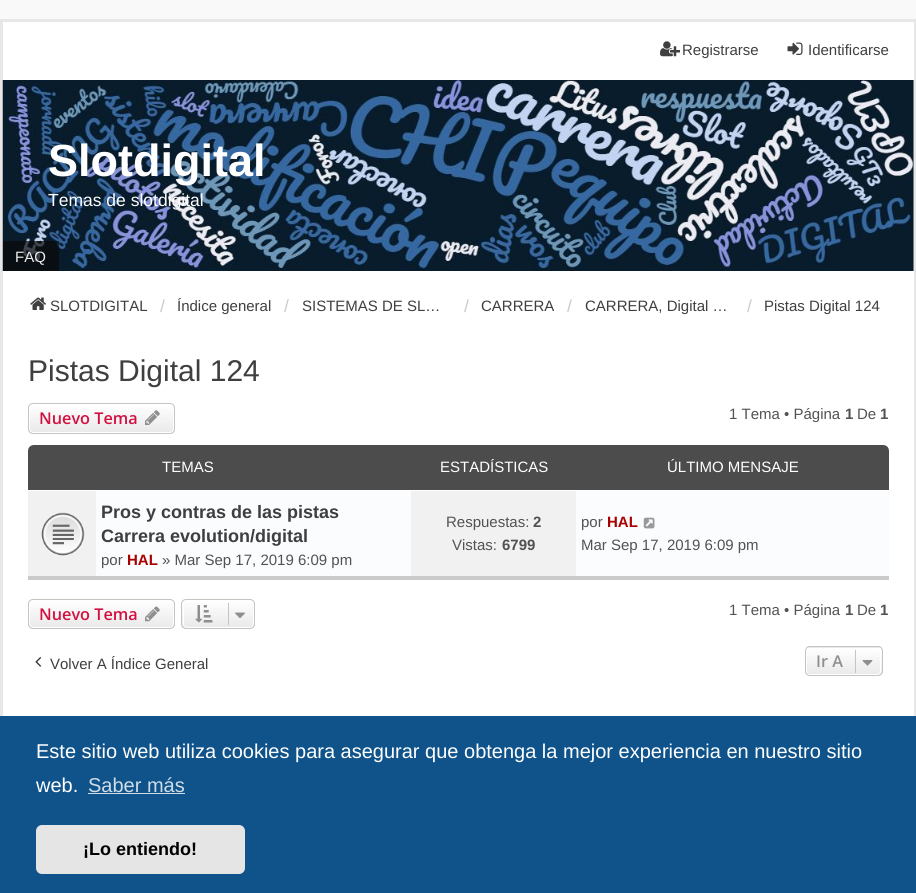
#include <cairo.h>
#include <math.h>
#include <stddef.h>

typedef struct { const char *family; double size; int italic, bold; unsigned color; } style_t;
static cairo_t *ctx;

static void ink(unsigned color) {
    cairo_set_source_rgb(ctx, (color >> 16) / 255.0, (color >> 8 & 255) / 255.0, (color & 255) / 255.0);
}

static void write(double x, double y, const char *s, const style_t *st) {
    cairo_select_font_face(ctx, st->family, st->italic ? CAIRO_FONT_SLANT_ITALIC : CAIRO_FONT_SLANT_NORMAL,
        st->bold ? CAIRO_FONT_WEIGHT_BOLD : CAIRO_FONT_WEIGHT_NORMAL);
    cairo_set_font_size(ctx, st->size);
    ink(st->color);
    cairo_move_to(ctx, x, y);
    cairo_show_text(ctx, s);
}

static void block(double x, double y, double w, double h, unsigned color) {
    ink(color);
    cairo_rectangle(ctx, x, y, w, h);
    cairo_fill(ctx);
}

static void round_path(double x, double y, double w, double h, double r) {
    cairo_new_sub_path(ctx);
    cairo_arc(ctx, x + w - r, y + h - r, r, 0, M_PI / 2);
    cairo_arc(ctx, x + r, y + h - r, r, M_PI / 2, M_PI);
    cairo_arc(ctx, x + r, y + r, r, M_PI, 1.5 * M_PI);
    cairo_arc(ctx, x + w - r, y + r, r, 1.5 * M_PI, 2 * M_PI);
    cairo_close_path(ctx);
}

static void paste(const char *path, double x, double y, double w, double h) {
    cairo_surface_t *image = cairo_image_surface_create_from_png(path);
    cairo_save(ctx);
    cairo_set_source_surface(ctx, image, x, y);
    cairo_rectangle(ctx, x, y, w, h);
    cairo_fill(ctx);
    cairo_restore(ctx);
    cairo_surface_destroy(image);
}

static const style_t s1 = {"Liberation Sans", 15, 0, 0, 0x3f3f3f};
static const style_t s2 = {"Liberation Sans", 45, 0, 1, 0xffffff};
static const style_t s3 = {"Liberation Sans", 17.5, 0, 0, 0xffffff};
static const style_t s4 = {"Liberation Sans", 15, 0, 0, 0xeeeeee};
static const style_t s5 = {"Liberation Sans", 17.5, 0, 0, 0xcacaca};
static const style_t s6 = {"Liberation Sans", 30, 0, 0, 0x3f3f3f};
static const style_t s7 = {"Open Sans SemiBold", 16.25, 0, 0, 0xd31141};
static const style_t s8 = {"Liberation Sans", 15, 0, 0, 0x525252};
static const style_t s9 = {"Liberation Sans", 15, 0, 1, 0x525252};
static const style_t s10 = {"Liberation Sans", 15, 0, 0, 0xffffff};
static const style_t s11 = {"Liberation Sans", 18, 0, 1, 0x3f3f3f};
static const style_t s12 = {"Liberation Sans", 15, 0, 1, 0xaa0000};
static const style_t s13 = {"Open Sans SemiBold", 16.25, 0, 0, 0x8f8f8f};
static const style_t s14 = {"Liberation Sans", 20, 0, 0, 0xffffff};
static const style_t s15 = {"Liberation Sans", 20, 0, 0, 0xcfdde8};
static const style_t s16 = {"Liberation Sans", 18, 0, 1, 0x000000};

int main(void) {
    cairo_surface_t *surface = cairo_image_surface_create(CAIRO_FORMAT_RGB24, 916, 893);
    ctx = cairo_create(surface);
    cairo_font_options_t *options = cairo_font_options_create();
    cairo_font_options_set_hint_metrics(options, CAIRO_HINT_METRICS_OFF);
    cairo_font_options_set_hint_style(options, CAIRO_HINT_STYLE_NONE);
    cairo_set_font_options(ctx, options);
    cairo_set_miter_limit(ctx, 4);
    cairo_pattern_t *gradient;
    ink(0xf9f9f9);
    cairo_paint(ctx);
    block(3, 22, 911, 58, 0xffffff);
    block(0, 19, 916, 3, 0xe7e7e7);
    block(914, 19, 2, 697, 0xe7e7e7);
    block(0, 19, 3, 697, 0xe7e7e7);
    paste("pic1.png", 660, 41, 20, 16);
    write(682, 55, "Registrarse", &s1);
    paste("pic2.png", 787, 42, 16, 13);
    write(808, 55, "Identificarse", &s1);
    block(913, 80, 1, 191, 0xffffff);
    paste("pic3.png", 2, 80, 912, 191);
    write(48, 176, "Slotdigital", &s2);
    write(48, 206, "Temas de slotdigital", &s3);
    cairo_set_source_rgba(ctx, 0.039, 0.039, 0.039, 0.7);
    cairo_rectangle(ctx, 3, 241, 56, 30);
    cairo_fill(ctx);
    write(15, 262, "FAQ", &s4);
    block(3, 271, 911, 445, 0xffffff);
    paste("pic4.png", 30, 297, 16, 13);
    write(50, 311, "SLOTDIGITAL", &s1);
    write(160, 312, "/", &s5);
    write(177, 311, "Índice general", &s1);
    write(284, 312, "/", &s5);
    write(302, 311, "SISTEMAS DE SL…", &s1);
    write(464, 312, "/", &s5);
    write(481, 311, "CARRERA", &s1);
    write(567, 312, "/", &s5);
    write(585, 311, "CARRERA, Digital …", &s1);
    write(747, 312, "/", &s5);
    write(764, 311, "Pistas Digital 124", &s1);
    write(28, 381, "Pistas Digital 124", &s6);
    cairo_save(ctx);
    round_path(28, 403, 147, 31, 5);
    cairo_clip(ctx);
    gradient = cairo_pattern_create_linear(101, 404, 101, 433);
    cairo_pattern_add_color_stop_rgba(gradient, 0, 1, 1, 1, 1);
    cairo_pattern_add_color_stop_rgba(gradient, 1, 0.914, 0.914, 0.914, 1);
    cairo_set_source(ctx, gradient);
    cairo_pattern_destroy(gradient);
    cairo_rectangle(ctx, 28, 404, 147, 29);
    cairo_fill(ctx);
    cairo_restore(ctx);
    round_path(29.5, 404.5, 144, 28, 3.5);
    ink(0xffffff);
    cairo_set_line_width(ctx, 1);
    cairo_stroke(ctx);
    round_path(28.5, 403.5, 146, 30, 4.5);
    ink(0xc7c3bf);
    cairo_stroke(ctx);
    write(39, 424, "Nuevo Tema", &s7);
    paste("pic5.png", 145, 410, 15, 15);
    write(729, 419, "1 Tema • Página", &s8);
    write(845, 419, "1", &s9);
    write(857, 419, "De", &s8);
    write(880, 419, "1", &s9);
    ink(0x4c4c4c);
    cairo_new_path(ctx);
    cairo_move_to(ctx, 34, 445);
    cairo_line_to(ctx, 883, 445);
    cairo_curve_to(ctx, 886.5, 445, 889, 447.5, 889, 451);
    cairo_line_to(ctx, 889, 580);
    cairo_line_to(ctx, 28, 580);
    cairo_line_to(ctx, 28, 451);
    cairo_curve_to(ctx, 28, 447.5, 30.5, 445, 34, 445);
    cairo_close_path(ctx);
    cairo_fill(ctx);
    block(28, 576, 861, 4, 0xcacaca);
    write(162, 472, "TEMAS", &s10);
    write(440, 472, "ESTADÍSTICAS", &s10);
    write(667, 472, "ÚLTIMO MENSAJE", &s10);
    block(96, 491, 793, 85, 0xfafcfe);
    block(28, 490, 861, 1, 0xffffff);
    block(28, 491, 68, 85, 0xf1f1f1);
    paste("pic6.png", 41, 512, 44, 44);
    write(101, 518, "Pros y contras de las pistas", &s11);
    write(101, 542, "Carrera evolution/digital", &s11);
    write(101, 565, "por", &s8);
    write(127, 565, "HAL", &s12);
    write(162, 565, "» Mar Sep 17, 2019 6:09 pm", &s8);
    block(411, 491, 165, 85, 0xf1f1f1);
    write(446, 527, "Respuestas:", &s8);
    write(533, 527, "2", &s9);
    write(452, 550, "Vistas:", &s8);
    write(502, 550, "6799", &s9);
    write(581, 527, "por", &s8);
    write(607, 527, "HAL", &s12);
    paste("pic7.png", 643, 517, 12, 12);
    write(581, 550, "Mar Sep 17, 2019 6:09 pm", &s8);
    cairo_save(ctx);
    round_path(28, 599, 147, 30, 5);
    cairo_clip(ctx);
    gradient = cairo_pattern_create_linear(101, 600, 101, 628);
    cairo_pattern_add_color_stop_rgba(gradient, 0, 1, 1, 1, 1);
    cairo_pattern_add_color_stop_rgba(gradient, 1, 0.914, 0.914, 0.914, 1);
    cairo_set_source(ctx, gradient);
    cairo_pattern_destroy(gradient);
    cairo_rectangle(ctx, 28, 600, 147, 28);
    cairo_fill(ctx);
    cairo_restore(ctx);
    round_path(29.5, 600.5, 144, 27, 3.5);
    ink(0xffffff);
    cairo_stroke(ctx);
    round_path(28.5, 599.5, 146, 29, 4.5);
    ink(0xc7c3bf);
    cairo_stroke(ctx);
    write(39, 620, "Nuevo Tema", &s7);
    paste("pic8.png", 145, 606, 15, 16);
    cairo_save(ctx);
    round_path(181, 599, 74, 30, 5);
    cairo_clip(ctx);
    gradient = cairo_pattern_create_linear(218, 600, 218, 628);
    cairo_pattern_add_color_stop_rgba(gradient, 0, 1, 1, 1, 1);
    cairo_pattern_add_color_stop_rgba(gradient, 1, 0.914, 0.914, 0.914, 1);
    cairo_set_source(ctx, gradient);
    cairo_pattern_destroy(gradient);
    cairo_rectangle(ctx, 181, 600, 74, 28);
    cairo_fill(ctx);
    cairo_restore(ctx);
    round_path(183.5, 600.5, 70, 27, 3.5);
    ink(0xffffff);
    cairo_stroke(ctx);
    round_path(181.5, 599.5, 73, 29, 4.5);
    ink(0xc7c3bf);
    cairo_stroke(ctx);
    paste("pic9.png", 195, 605, 18, 18);
    block(228, 603, 1, 22, 0xc7c3bf);
    paste("pic10.png", 235, 612, 10, 6);
    write(729, 615, "1 Tema • Página", &s8);
    write(845, 615, "1", &s9);
    write(857, 615, "De", &s8);
    write(880, 615, "1", &s9);
    paste("pic11.png", 35, 657, 7, 10);
    write(50, 669, "Volver A Índice General", &s1);
    cairo_save(ctx);
    round_path(805, 646, 78, 30, 5);
    cairo_clip(ctx);
    gradient = cairo_pattern_create_linear(844, 620, 844, 648);
    cairo_pattern_add_color_stop_rgba(gradient, 0, 1, 1, 1, 1);
    cairo_pattern_add_color_stop_rgba(gradient, 1, 0.914, 0.914, 0.914, 1);
    cairo_set_source(ctx, gradient);
    cairo_pattern_destroy(gradient);
    cairo_rectangle(ctx, 805, 646, 78, 2);
    cairo_fill(ctx);
    gradient = cairo_pattern_create_linear(844, 648, 844, 675);
    cairo_pattern_add_color_stop_rgba(gradient, 0, 1, 1, 1, 1);
    cairo_pattern_add_color_stop_rgba(gradient, 1, 0.914, 0.914, 0.914, 1);
    cairo_set_source(ctx, gradient);
    cairo_pattern_destroy(gradient);
    cairo_rectangle(ctx, 805, 648, 78, 27);
    cairo_fill(ctx);
    cairo_restore(ctx);
    round_path(806.5, 648.5, 74, 26, 3.5);
    ink(0xffffff);
    cairo_stroke(ctx);
    round_path(805.5, 646.5, 77, 29, 4.5);
    ink(0xc7c3bf);
    cairo_stroke(ctx);
    write(816, 667, "Ir A", &s13);
    block(855, 650, 1, 23, 0xc7c3bf);
    paste("pic12.png", 862, 660, 11, 6);
    block(0, 716, 916, 177, 0x0f538a);
    write(36, 758, "Este sitio web utiliza cookies para asegurar que obtenga la mejor experiencia en nuestro sitio", &s14);
    write(36, 792, "web.", &s14);
    write(88, 792, "Saber más", &s15);
    block(88, 793, 97, 1, 0xcfdde8);
    ink(0xe5e5e5);
    round_path(36, 825, 209, 49, 6);
    cairo_fill(ctx);
    write(83, 855, "¡Lo entiendo!", &s16);
    cairo_surface_write_to_png(surface, "screenshot.png");
    cairo_font_options_destroy(options);
    cairo_destroy(ctx);
    cairo_surface_destroy(surface);
    return 0;
}
